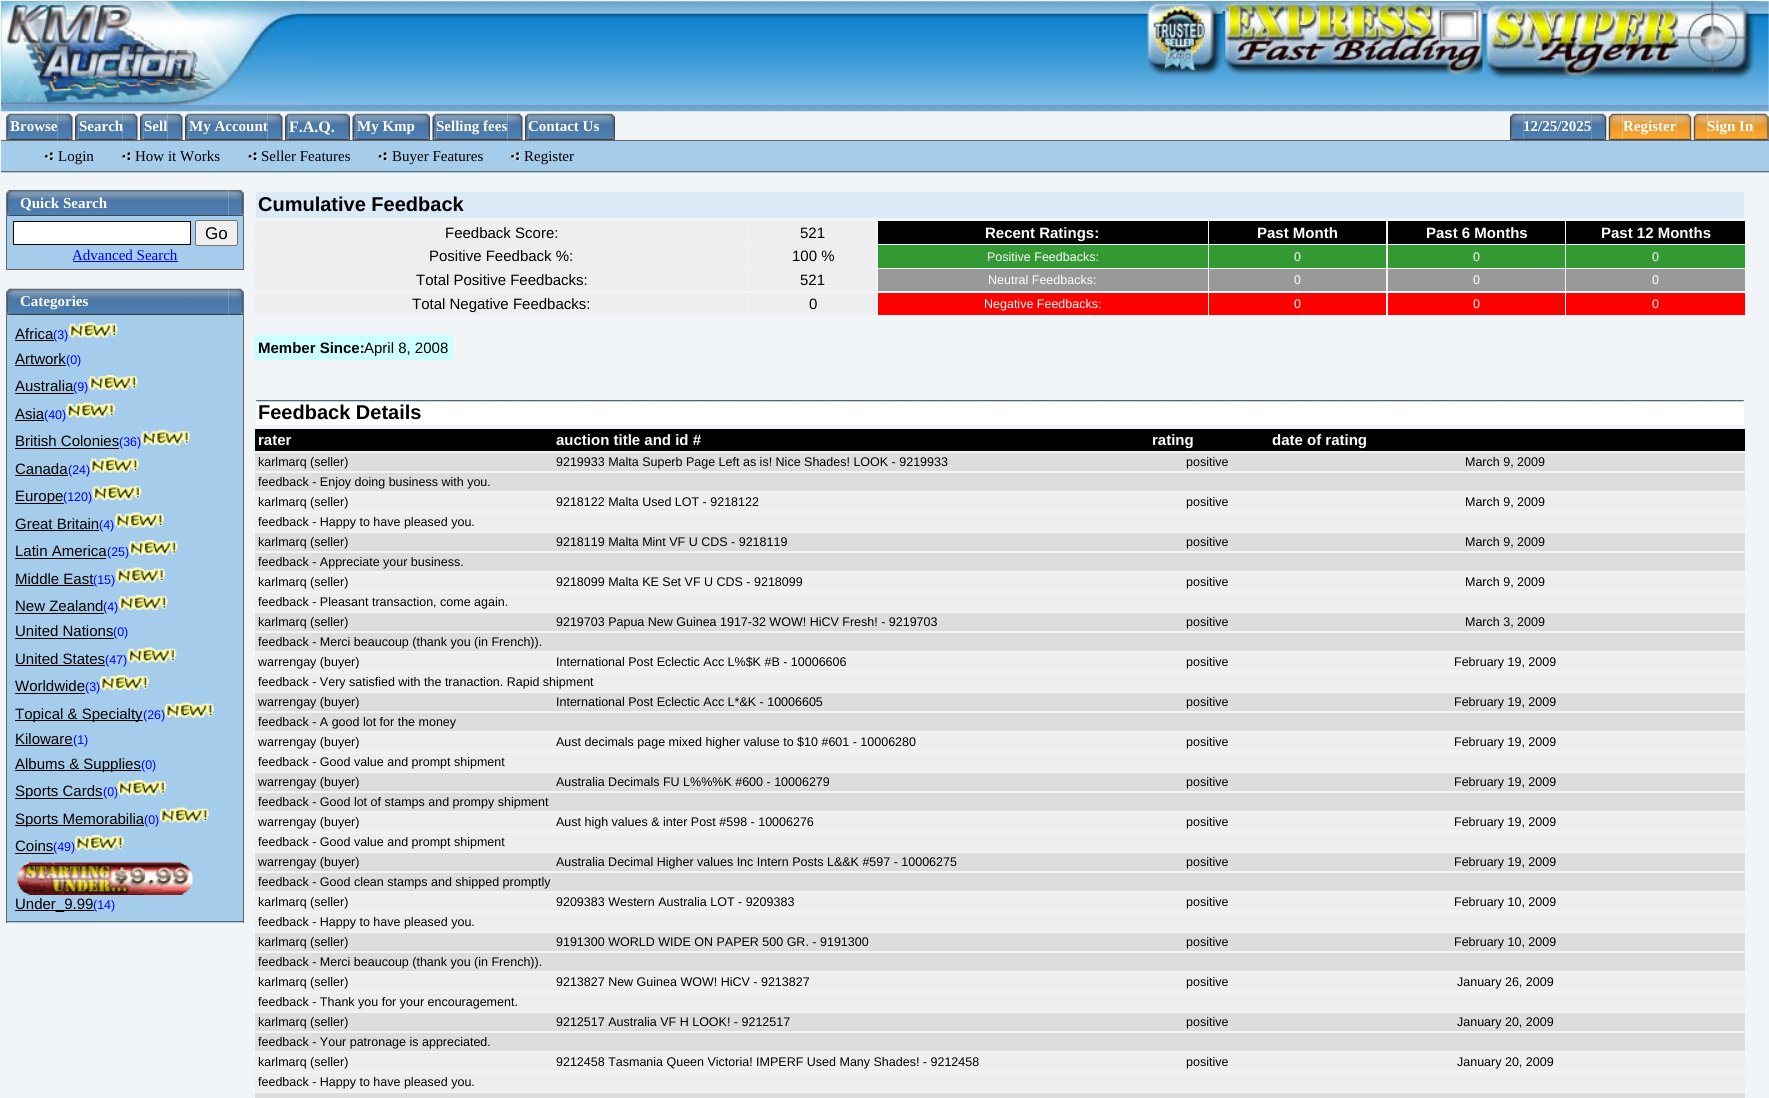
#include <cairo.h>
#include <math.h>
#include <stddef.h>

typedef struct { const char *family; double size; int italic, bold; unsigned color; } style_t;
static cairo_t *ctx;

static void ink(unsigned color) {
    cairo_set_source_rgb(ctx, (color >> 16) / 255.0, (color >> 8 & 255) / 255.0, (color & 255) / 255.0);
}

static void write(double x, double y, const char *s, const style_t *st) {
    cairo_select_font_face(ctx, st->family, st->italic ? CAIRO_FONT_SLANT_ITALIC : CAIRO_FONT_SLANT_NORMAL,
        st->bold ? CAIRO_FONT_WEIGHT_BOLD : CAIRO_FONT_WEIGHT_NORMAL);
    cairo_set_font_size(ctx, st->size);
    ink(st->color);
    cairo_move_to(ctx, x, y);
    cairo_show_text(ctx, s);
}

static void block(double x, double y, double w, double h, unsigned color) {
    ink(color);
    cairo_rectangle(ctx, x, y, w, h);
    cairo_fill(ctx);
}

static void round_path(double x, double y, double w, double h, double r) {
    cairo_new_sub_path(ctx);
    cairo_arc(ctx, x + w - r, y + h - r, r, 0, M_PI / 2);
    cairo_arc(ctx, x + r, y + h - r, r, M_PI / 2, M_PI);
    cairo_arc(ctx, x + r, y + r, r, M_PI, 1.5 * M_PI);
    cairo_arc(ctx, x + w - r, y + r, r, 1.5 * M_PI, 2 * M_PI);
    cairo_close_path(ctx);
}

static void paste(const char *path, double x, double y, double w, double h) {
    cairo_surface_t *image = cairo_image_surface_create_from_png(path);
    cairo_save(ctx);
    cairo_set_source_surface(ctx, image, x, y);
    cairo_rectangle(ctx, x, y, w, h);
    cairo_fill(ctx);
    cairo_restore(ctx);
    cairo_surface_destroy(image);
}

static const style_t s1 = {"Liberation Serif", 15, 0, 1, 0xffffff};
static const style_t s2 = {"Liberation Serif", 16, 0, 1, 0xffffff};
static const style_t s3 = {"Liberation Serif", 15, 0, 0, 0x000000};
static const style_t s4 = {"Liberation Sans", 17, 0, 0, 0x000000};
static const style_t s5 = {"Liberation Serif", 15, 0, 0, 0x0000ee};
static const style_t s6 = {"Liberation Sans", 15, 0, 0, 0x000000};
static const style_t s7 = {"Liberation Sans", 12.5, 0, 0, 0x0000ff};
static const style_t s8 = {"Liberation Sans", 20, 0, 1, 0x000000};
static const style_t s9 = {"Liberation Sans", 15, 0, 1, 0xffffff};
static const style_t s10 = {"Liberation Sans", 12.5, 0, 0, 0xffffff};
static const style_t s11 = {"Liberation Sans", 15, 0, 1, 0x000000};
static const style_t s12 = {"Liberation Sans", 12.5, 0, 0, 0x000000};

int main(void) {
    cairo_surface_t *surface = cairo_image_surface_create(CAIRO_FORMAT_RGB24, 1769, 1098);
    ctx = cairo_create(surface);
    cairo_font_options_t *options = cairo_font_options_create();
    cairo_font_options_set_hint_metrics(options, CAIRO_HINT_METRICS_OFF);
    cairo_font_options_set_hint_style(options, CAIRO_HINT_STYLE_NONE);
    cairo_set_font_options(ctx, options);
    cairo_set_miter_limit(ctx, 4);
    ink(0xf1f5f8);
    cairo_paint(ctx);
    paste("pic1.png", 1, 1, 1768, 111);
    paste("pic2.png", 1, 1, 307, 106);
    paste("pic3.png", 1141, 1, 82, 76);
    paste("pic4.png", 1222, 1, 273, 75);
    paste("pic5.png", 1482, 1, 276, 80);
    paste("pic6.png", 6, 113, 4, 27);
    paste("pic7.png", 10, 113, 48, 27);
    paste("pic8.png", 57, 113, 16, 27);
    write(10, 131, "Browse", &s1);
    paste("pic9.png", 75, 113, 4, 27);
    paste("pic10.png", 78, 113, 45, 27);
    paste("pic11.png", 122, 113, 16, 27);
    write(79, 131, "Search", &s1);
    paste("pic9.png", 140, 113, 4, 27);
    paste("pic12.png", 143, 113, 25, 27);
    paste("pic11.png", 167, 113, 16, 27);
    write(144, 131, "Sell", &s1);
    paste("pic9.png", 185, 113, 4, 27);
    paste("pic13.png", 188, 113, 80, 27);
    paste("pic11.png", 267, 113, 16, 27);
    write(189, 131, "My Account", &s1);
    paste("pic14.png", 285, 113, 4, 27);
    paste("pic15.png", 288, 113, 47, 27);
    write(289, 132, "F.A.Q.", &s2);
    paste("pic16.png", 335, 113, 15, 27);
    paste("pic17.png", 352, 113, 5, 27);
    paste("pic18.png", 356, 113, 59, 27);
    write(357, 131, "My Kmp", &s1);
    paste("pic19.png", 415, 113, 15, 27);
    paste("pic17.png", 432, 113, 5, 27);
    paste("pic20.png", 436, 113, 72, 27);
    write(436, 131, "Selling fees", &s1);
    paste("pic11.png", 507, 113, 16, 27);
    paste("pic14.png", 525, 113, 4, 27);
    paste("pic21.png", 528, 113, 72, 27);
    write(528, 131, "Contact Us", &s1);
    paste("pic16.png", 600, 113, 15, 27);
    paste("pic22.png", 1510, 113, 14, 27);
    paste("pic23.png", 1523, 113, 69, 27);
    paste("pic24.png", 1591, 113, 16, 27);
    write(1523, 131, "12/25/2025", &s1);
    paste("pic25.png", 1608, 113, 15, 27);
    paste("pic26.png", 1622, 113, 55, 27);
    write(1623, 131, "Register", &s1);
    paste("pic27.png", 1676, 113, 16, 27);
    paste("pic28.png", 1693, 113, 15, 27);
    paste("pic29.png", 1707, 113, 47, 27);
    paste("pic30.png", 1753, 113, 16, 27);
    write(1707, 131, "Sign In", &s1);
    block(1, 141, 1768, 32, 0xa5cceb);
    block(1, 140, 1768, 1, 0x666666);
    block(1, 171, 1768, 1, 0x666666);
    paste("pic31.png", 43, 151, 11, 11);
    write(58, 161, "Login", &s3);
    paste("pic32.png", 121, 151, 11, 11);
    write(135, 161, "How it Works", &s3);
    paste("pic33.png", 247, 151, 11, 11);
    write(261, 161, "Seller Features", &s3);
    paste("pic33.png", 377, 151, 11, 11);
    write(392, 161, "Buyer Features", &s3);
    paste("pic34.png", 510, 151, 10, 11);
    write(524, 161, "Register", &s3);
    paste("pic35.png", 6, 190, 14, 26);
    paste("pic36.png", 20, 190, 209, 26);
    write(20, 208, "Quick Search", &s1);
    paste("pic37.png", 228, 190, 16, 26);
    block(7, 216, 236, 53, 0xa5cceb);
    block(243, 216, 1, 54, 0x666666);
    block(6, 269, 238, 1, 0x666666);
    block(6, 216, 1, 54, 0x666666);
    ink(0xffffff);
    cairo_rectangle(ctx, 13.5, 221.5, 177, 23);
    cairo_fill_preserve(ctx);
    ink(0x000000);
    cairo_set_line_width(ctx, 1);
    cairo_stroke(ctx);
    ink(0xefefef);
    round_path(195.5, 220.5, 42, 25, 2);
    cairo_fill_preserve(ctx);
    ink(0x767676);
    cairo_stroke(ctx);
    write(205, 239, "Go", &s4);
    write(72, 260, "Advanced Search", &s5);
    block(73, 261, 105, 1, 0x0000ee);
    paste("pic38.png", 6, 288, 14, 27);
    paste("pic39.png", 20, 288, 209, 27);
    write(20, 306, "Categories", &s1);
    paste("pic40.png", 228, 288, 16, 27);
    block(7, 315, 236, 608, 0xa5cceb);
    block(243, 315, 1, 608, 0x666666);
    block(6, 921, 238, 1, 0x666666);
    block(6, 315, 1, 608, 0x666666);
    write(15, 339, "Africa", &s6);
    block(15, 340, 39, 1, 0x000000);
    write(53, 339, "(3)", &s7);
    paste("pic41.png", 68, 322, 50, 16);
    write(15, 364, "Artwork", &s6);
    block(15, 365, 51, 1, 0x000000);
    write(66, 364, "(0)", &s7);
    write(15, 391, "Australia", &s6);
    block(15, 393, 59, 1, 0x000000);
    write(73, 391, "(9)", &s7);
    paste("pic42.png", 88, 375, 50, 16);
    write(15, 419, "Asia", &s6);
    block(15, 420, 29, 1, 0x000000);
    write(44, 419, "(40)", &s7);
    paste("pic43.png", 66, 402, 49, 16);
    write(15, 446, "British Colonies", &s6);
    block(15, 448, 104, 1, 0x000000);
    write(119, 446, "(36)", &s7);
    paste("pic44.png", 141, 430, 49, 16);
    write(15, 474, "Canada", &s6);
    block(15, 475, 53, 1, 0x000000);
    write(68, 474, "(24)", &s7);
    paste("pic45.png", 90, 457, 49, 16);
    block(15, 503, 49, 1, 0x000000);
    write(15, 501, "Europe", &s6);
    write(63, 501, "(120)", &s7);
    paste("pic46.png", 92, 485, 50, 16);
    write(15, 529, "Great Britain", &s6);
    block(15, 530, 84, 1, 0x000000);
    write(99, 529, "(4)", &s7);
    paste("pic47.png", 115, 512, 49, 16);
    write(15, 556, "Latin America", &s6);
    block(15, 558, 91, 1, 0x000000);
    write(107, 556, "(25)", &s7);
    paste("pic48.png", 128, 540, 50, 16);
    write(15, 584, "Middle East", &s6);
    block(15, 585, 79, 1, 0x000000);
    write(93, 584, "(15)", &s7);
    paste("pic43.png", 116, 567, 49, 16);
    write(15, 611, "New Zealand", &s6);
    block(15, 613, 89, 1, 0x000000);
    write(103, 611, "(4)", &s7);
    paste("pic42.png", 118, 595, 50, 16);
    write(15, 636, "United Nations", &s6);
    block(15, 638, 99, 1, 0x000000);
    write(113, 636, "(0)", &s7);
    write(15, 664, "United States", &s6);
    block(15, 665, 90, 1, 0x000000);
    write(105, 664, "(47)", &s7);
    paste("pic49.png", 127, 647, 50, 16);
    write(15, 691, "Worldwide", &s6);
    block(15, 693, 70, 1, 0x000000);
    write(85, 691, "(3)", &s7);
    paste("pic50.png", 100, 675, 49, 16);
    block(15, 720, 128, 1, 0x000000);
    write(15, 719, "Topical & Specialty", &s6);
    write(143, 719, "(26)", &s7);
    paste("pic45.png", 165, 702, 49, 16);
    write(15, 744, "Kiloware", &s6);
    block(15, 745, 58, 1, 0x000000);
    write(73, 744, "(1)", &s7);
    block(15, 770, 126, 1, 0x000000);
    write(15, 769, "Albums & Supplies", &s6);
    write(141, 769, "(0)", &s7);
    block(15, 798, 88, 1, 0x000000);
    write(15, 796, "Sports Cards", &s6);
    write(103, 796, "(0)", &s7);
    paste("pic51.png", 117, 780, 50, 16);
    block(15, 825, 129, 1, 0x000000);
    write(15, 824, "Sports Memorabilia", &s6);
    write(144, 824, "(0)", &s7);
    paste("pic45.png", 160, 807, 49, 16);
    write(15, 851, "Coins", &s6);
    block(15, 853, 39, 1, 0x000000);
    write(53, 851, "(49)", &s7);
    paste("pic50.png", 75, 835, 49, 16);
    paste("pic52.png", 17, 862, 176, 33);
    block(15, 910, 79, 1, 0x000000);
    write(15, 909, "Under_9.99", &s6);
    write(93, 909, "(14)", &s7);
    block(256, 192, 1488, 26, 0xdbeaf7);
    write(258, 211, "Cumulative Feedback", &s8);
    block(255, 221, 493, 23, 0xeeeeee);
    write(445, 238, "Feedback Score:", &s6);
    block(749, 221, 127, 23, 0xeeeeee);
    write(800, 238, "521", &s6);
    block(878, 221, 330, 23, 0x000000);
    write(985, 238, "Recent Ratings:", &s9);
    block(1209, 221, 177, 23, 0x000000);
    write(1257, 238, "Past Month", &s9);
    block(1388, 221, 177, 23, 0x000000);
    write(1426, 238, "Past 6 Months", &s9);
    block(1566, 221, 179, 23, 0x000000);
    write(1601, 238, "Past 12 Months", &s9);
    block(255, 245, 493, 23, 0xeeeeee);
    write(429, 261, "Positive Feedback %:", &s6);
    block(749, 245, 127, 23, 0xeeeeee);
    write(792, 261, "100 %", &s6);
    block(878, 245, 330, 23, 0x339933);
    write(987, 261, "Positive Feedbacks:", &s10);
    block(1209, 245, 177, 23, 0x339933);
    write(1294, 261, "0", &s10);
    block(1388, 245, 177, 23, 0x339933);
    write(1473, 261, "0", &s10);
    block(1566, 245, 179, 23, 0x339933);
    write(1652, 261, "0", &s10);
    block(255, 269, 493, 22, 0xeeeeee);
    write(416, 285, "Total Positive Feedbacks:", &s6);
    block(749, 269, 127, 22, 0xeeeeee);
    write(800, 285, "521", &s6);
    block(878, 269, 330, 22, 0x999999);
    write(988, 284, "Neutral Feedbacks:", &s10);
    block(1209, 269, 177, 22, 0x999999);
    write(1294, 284, "0", &s10);
    block(1388, 269, 177, 22, 0x999999);
    write(1473, 284, "0", &s10);
    block(1566, 269, 179, 22, 0x999999);
    write(1652, 284, "0", &s10);
    block(255, 293, 493, 22, 0xeeeeee);
    write(412, 309, "Total Negative Feedbacks:", &s6);
    block(749, 293, 127, 22, 0xeeeeee);
    write(809, 309, "0", &s6);
    block(878, 293, 330, 22, 0xff0000);
    write(984, 308, "Negative Feedbacks:", &s10);
    block(1209, 293, 177, 22, 0xff0000);
    write(1294, 308, "0", &s10);
    block(1388, 293, 177, 22, 0xff0000);
    write(1473, 308, "0", &s10);
    block(1566, 293, 179, 22, 0xff0000);
    write(1652, 308, "0", &s10);
    block(254, 335, 199, 25, 0xccffff);
    write(258, 353, "Member Since:", &s11);
    write(364, 353, "April 8, 2008", &s6);
    paste("pic53.png", 256, 400, 1488, 25);
    write(258, 419, "Feedback Details", &s8);
    block(255, 429, 1490, 22, 0x000000);
    write(258, 445, "rater", &s9);
    write(556, 445, "auction title and id #", &s9);
    write(1152, 445, "rating", &s9);
    write(1272, 445, "date of rating", &s9);
    block(255, 453, 1490, 18, 0xdddddd);
    write(258, 466, "karlmarq (seller)", &s12);
    write(556, 466, "9219933 Malta Superb Page Left as is! Nice Shades! LOOK - 9219933", &s12);
    write(1186, 466, "positive", &s12);
    write(1465, 466, "March 9, 2009", &s12);
    block(255, 473, 1490, 18, 0xdddddd);
    write(258, 486, "feedback - Enjoy doing business with you.", &s12);
    block(255, 493, 1490, 18, 0xeeeeee);
    write(258, 506, "karlmarq (seller)", &s12);
    write(556, 506, "9218122 Malta Used LOT - 9218122", &s12);
    write(1186, 506, "positive", &s12);
    write(1465, 506, "March 9, 2009", &s12);
    block(255, 513, 1490, 18, 0xeeeeee);
    write(258, 526, "feedback - Happy to have pleased you.", &s12);
    block(255, 533, 1490, 18, 0xdddddd);
    write(258, 546, "karlmarq (seller)", &s12);
    write(556, 546, "9218119 Malta Mint VF U CDS - 9218119", &s12);
    write(1186, 546, "positive", &s12);
    write(1465, 546, "March 9, 2009", &s12);
    block(255, 553, 1490, 18, 0xdddddd);
    write(258, 566, "feedback - Appreciate your business.", &s12);
    block(255, 573, 1490, 18, 0xeeeeee);
    write(258, 586, "karlmarq (seller)", &s12);
    write(556, 586, "9218099 Malta KE Set VF U CDS - 9218099", &s12);
    write(1186, 586, "positive", &s12);
    write(1465, 586, "March 9, 2009", &s12);
    block(255, 593, 1490, 18, 0xeeeeee);
    write(258, 606, "feedback - Pleasant transaction, come again.", &s12);
    block(255, 613, 1490, 18, 0xdddddd);
    write(258, 626, "karlmarq (seller)", &s12);
    write(556, 626, "9219703 Papua New Guinea 1917-32 WOW! HiCV Fresh! - 9219703", &s12);
    write(1186, 626, "positive", &s12);
    write(1465, 626, "March 3, 2009", &s12);
    block(255, 633, 1490, 18, 0xdddddd);
    write(258, 646, "feedback - Merci beaucoup (thank you (in French)).", &s12);
    block(255, 653, 1490, 18, 0xeeeeee);
    write(258, 666, "warrengay (buyer)", &s12);
    write(556, 666, "International Post Eclectic Acc L%$K #B - 10006606", &s12);
    write(1186, 666, "positive", &s12);
    write(1454, 666, "February 19, 2009", &s12);
    block(255, 673, 1490, 18, 0xeeeeee);
    write(258, 686, "feedback - Very satisfied with the tranaction. Rapid shipment", &s12);
    block(255, 693, 1490, 18, 0xdddddd);
    write(258, 706, "warrengay (buyer)", &s12);
    write(556, 706, "International Post Eclectic Acc L*&K - 10006605", &s12);
    write(1186, 706, "positive", &s12);
    write(1454, 706, "February 19, 2009", &s12);
    block(255, 713, 1490, 18, 0xdddddd);
    write(258, 726, "feedback - A good lot for the money", &s12);
    block(255, 733, 1490, 18, 0xeeeeee);
    write(258, 746, "warrengay (buyer)", &s12);
    write(556, 746, "Aust decimals page mixed higher valuse to $10 #601 - 10006280", &s12);
    write(1186, 746, "positive", &s12);
    write(1454, 746, "February 19, 2009", &s12);
    block(255, 753, 1490, 18, 0xeeeeee);
    write(258, 766, "feedback - Good value and prompt shipment", &s12);
    block(255, 773, 1490, 18, 0xdddddd);
    write(258, 786, "warrengay (buyer)", &s12);
    write(556, 786, "Australia Decimals FU L%%%K #600 - 10006279", &s12);
    write(1186, 786, "positive", &s12);
    write(1454, 786, "February 19, 2009", &s12);
    block(255, 793, 1490, 18, 0xdddddd);
    write(258, 806, "feedback - Good lot of stamps and prompy shipment", &s12);
    block(255, 813, 1490, 18, 0xeeeeee);
    write(258, 826, "warrengay (buyer)", &s12);
    write(556, 826, "Aust high values & inter Post #598 - 10006276", &s12);
    write(1186, 826, "positive", &s12);
    write(1454, 826, "February 19, 2009", &s12);
    block(255, 833, 1490, 18, 0xeeeeee);
    write(258, 846, "feedback - Good value and prompt shipment", &s12);
    block(255, 853, 1490, 18, 0xdddddd);
    write(258, 866, "warrengay (buyer)", &s12);
    write(556, 866, "Australia Decimal Higher values Inc Intern Posts L&&K #597 - 10006275", &s12);
    write(1186, 866, "positive", &s12);
    write(1454, 866, "February 19, 2009", &s12);
    block(255, 873, 1490, 18, 0xdddddd);
    write(258, 886, "feedback - Good clean stamps and shipped promptly", &s12);
    block(255, 893, 1490, 18, 0xeeeeee);
    write(258, 906, "karlmarq (seller)", &s12);
    write(556, 906, "9209383 Western Australia LOT - 9209383", &s12);
    write(1186, 906, "positive", &s12);
    write(1454, 906, "February 10, 2009", &s12);
    block(255, 913, 1490, 18, 0xeeeeee);
    write(258, 926, "feedback - Happy to have pleased you.", &s12);
    block(255, 933, 1490, 18, 0xdddddd);
    write(258, 946, "karlmarq (seller)", &s12);
    write(556, 946, "9191300 WORLD WIDE ON PAPER 500 GR. - 9191300", &s12);
    write(1186, 946, "positive", &s12);
    write(1454, 946, "February 10, 2009", &s12);
    block(255, 953, 1490, 18, 0xdddddd);
    write(258, 966, "feedback - Merci beaucoup (thank you (in French)).", &s12);
    block(255, 973, 1490, 18, 0xeeeeee);
    write(258, 986, "karlmarq (seller)", &s12);
    write(556, 986, "9213827 New Guinea WOW! HiCV - 9213827", &s12);
    write(1186, 986, "positive", &s12);
    write(1457, 986, "January 26, 2009", &s12);
    block(255, 993, 1490, 18, 0xeeeeee);
    write(258, 1006, "feedback - Thank you for your encouragement.", &s12);
    block(255, 1013, 1490, 18, 0xdddddd);
    write(258, 1026, "karlmarq (seller)", &s12);
    write(556, 1026, "9212517 Australia VF H LOOK! - 9212517", &s12);
    write(1186, 1026, "positive", &s12);
    write(1457, 1026, "January 20, 2009", &s12);
    block(255, 1033, 1490, 18, 0xdddddd);
    write(258, 1046, "feedback - Your patronage is appreciated.", &s12);
    block(255, 1053, 1490, 18, 0xeeeeee);
    write(258, 1066, "karlmarq (seller)", &s12);
    write(556, 1066, "9212458 Tasmania Queen Victoria! IMPERF Used Many Shades! - 9212458", &s12);
    write(1186, 1066, "positive", &s12);
    write(1457, 1066, "January 20, 2009", &s12);
    block(255, 1073, 1490, 18, 0xeeeeee);
    write(258, 1086, "feedback - Happy to have pleased you.", &s12);
    block(255, 1093, 1490, 5, 0xdddddd);
    cairo_surface_write_to_png(surface, "screenshot.png");
    cairo_font_options_destroy(options);
    cairo_destroy(ctx);
    cairo_surface_destroy(surface);
    return 0;
}
